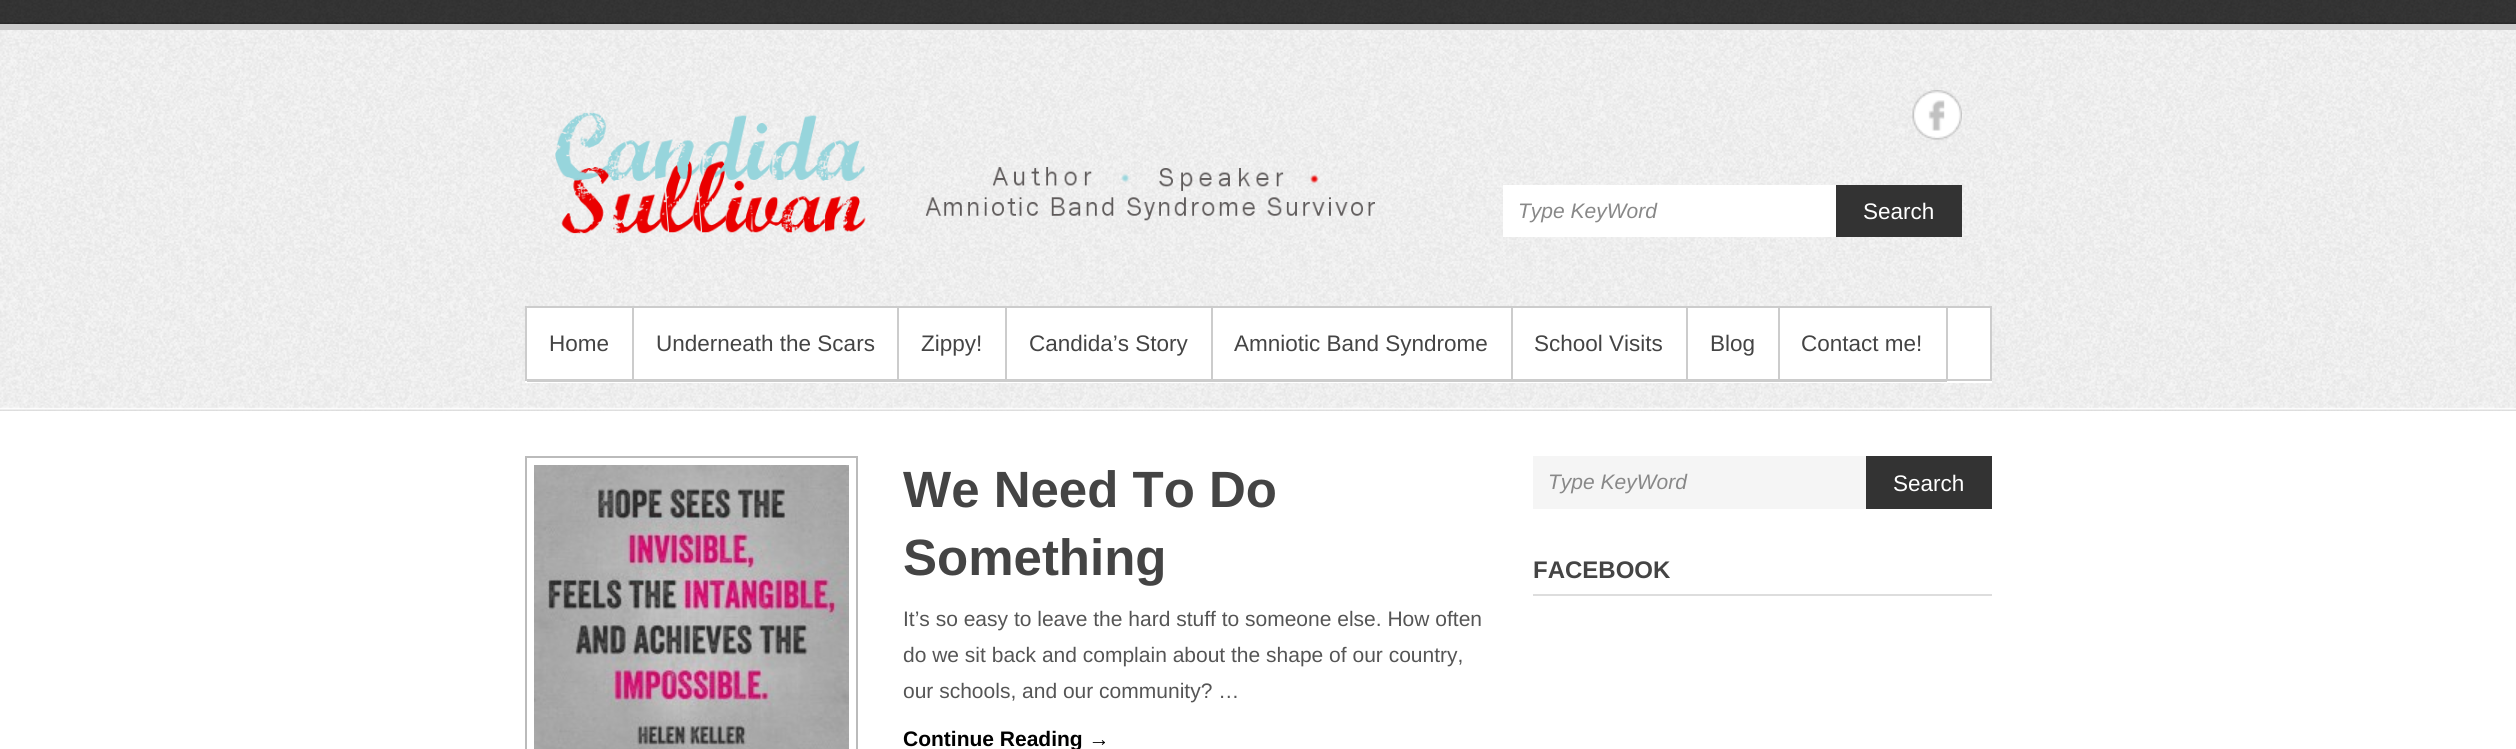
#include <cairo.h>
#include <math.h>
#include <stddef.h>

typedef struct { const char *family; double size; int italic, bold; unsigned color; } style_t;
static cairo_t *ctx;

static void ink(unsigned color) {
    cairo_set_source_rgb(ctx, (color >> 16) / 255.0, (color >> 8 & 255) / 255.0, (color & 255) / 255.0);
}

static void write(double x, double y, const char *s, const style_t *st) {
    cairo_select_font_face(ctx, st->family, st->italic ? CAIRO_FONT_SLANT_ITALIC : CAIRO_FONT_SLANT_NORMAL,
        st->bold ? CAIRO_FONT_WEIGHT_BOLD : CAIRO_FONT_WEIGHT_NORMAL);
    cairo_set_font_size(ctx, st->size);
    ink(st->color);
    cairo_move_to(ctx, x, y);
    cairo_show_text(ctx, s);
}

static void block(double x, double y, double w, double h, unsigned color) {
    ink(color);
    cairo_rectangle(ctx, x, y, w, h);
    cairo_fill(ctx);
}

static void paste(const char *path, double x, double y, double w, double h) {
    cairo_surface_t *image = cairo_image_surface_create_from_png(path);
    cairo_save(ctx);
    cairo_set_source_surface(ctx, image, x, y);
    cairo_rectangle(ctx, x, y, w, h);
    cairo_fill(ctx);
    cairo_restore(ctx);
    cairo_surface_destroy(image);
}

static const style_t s1 = {"Liberation Sans", 21, 1, 0, 0x888888};
static const style_t s2 = {"Liberation Sans", 22.5, 0, 0, 0xffffff};
static const style_t s3 = {"Liberation Sans", 22.5, 0, 0, 0x444444};
static const style_t s4 = {"Liberation Sans", 51, 0, 1, 0x444444};
static const style_t s5 = {"Liberation Sans", 21, 0, 0, 0x555555};
static const style_t s6 = {"Liberation Sans", 21, 0, 1, 0x000000};
static const style_t s7 = {"Liberation Sans", 24, 0, 1, 0x444444};

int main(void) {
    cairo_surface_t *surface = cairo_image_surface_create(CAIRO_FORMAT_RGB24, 2516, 749);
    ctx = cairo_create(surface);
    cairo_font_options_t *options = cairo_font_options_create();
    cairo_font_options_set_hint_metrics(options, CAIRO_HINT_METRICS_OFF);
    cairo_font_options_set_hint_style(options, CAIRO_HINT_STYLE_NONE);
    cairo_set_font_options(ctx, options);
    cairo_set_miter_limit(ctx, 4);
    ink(0xffffff);
    cairo_paint(ctx);
    paste("pic1.png", 0, 30, 2516, 381);
    paste("pic2.png", 0, 0, 2516, 24);
    block(0, 24, 2516, 6, 0xcccccc);
    paste("pic3.png", 555, 112, 820, 122);
    paste("pic4.png", 1912, 90, 50, 50);
    block(1503, 185, 333, 52, 0xffffff);
    write(1518, 218, "Type KeyWord", &s1);
    block(1836, 185, 126, 52, 0x333333);
    write(1863, 219, "Search", &s2);
    block(525, 381, 1467, 2, 0xffffff);
    cairo_rectangle(ctx, 526, 307, 1465, 73);
    cairo_fill_preserve(ctx);
    ink(0xcccccc);
    cairo_stroke(ctx);
    block(632, 308, 2, 73, 0xcccccc);
    block(527, 381, 1420, 1, 0xcccccc);
    write(549, 351, "Home", &s3);
    block(897, 308, 2, 73, 0xcccccc);
    write(656, 351, "Underneath the Scars", &s3);
    block(1005, 308, 2, 73, 0xcccccc);
    write(921, 351, "Zippy!", &s3);
    block(1211, 308, 2, 73, 0xcccccc);
    write(1029, 351, "Candida’s Story", &s3);
    block(1511, 308, 2, 73, 0xcccccc);
    write(1234, 351, "Amniotic Band Syndrome", &s3);
    block(1686, 308, 2, 73, 0xcccccc);
    write(1534, 351, "School Visits", &s3);
    block(1778, 308, 2, 73, 0xcccccc);
    write(1710, 351, "Blog", &s3);
    block(1946, 308, 2, 73, 0xcccccc);
    write(1801, 351, "Contact me!", &s3);
    cairo_rectangle(ctx, 526, 457, 331, 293);
    ink(0xbbbbbb);
    cairo_stroke(ctx);
    paste("pic5.png", 534, 465, 315, 284);
    write(903, 507, "We Need To Do", &s4);
    write(903, 575, "Something", &s4);
    write(903, 626, "It’s so easy to leave the hard stuff to someone else. How often", &s5);
    write(903, 662, "do we sit back and complain about the shape of our country,", &s5);
    write(903, 698, "our schools, and our community? …", &s5);
    write(903, 746, "Continue Reading →", &s6);
    block(1533, 456, 333, 53, 0xf5f5f5);
    write(1548, 489, "Type KeyWord", &s1);
    block(1866, 456, 126, 53, 0x333333);
    write(1893, 491, "Search", &s2);
    write(1533, 578, "FACEBOOK", &s7);
    block(1533, 594, 459, 2, 0xdddddd);
    cairo_surface_write_to_png(surface, "screenshot.png");
    cairo_font_options_destroy(options);
    cairo_destroy(ctx);
    cairo_surface_destroy(surface);
    return 0;
}
